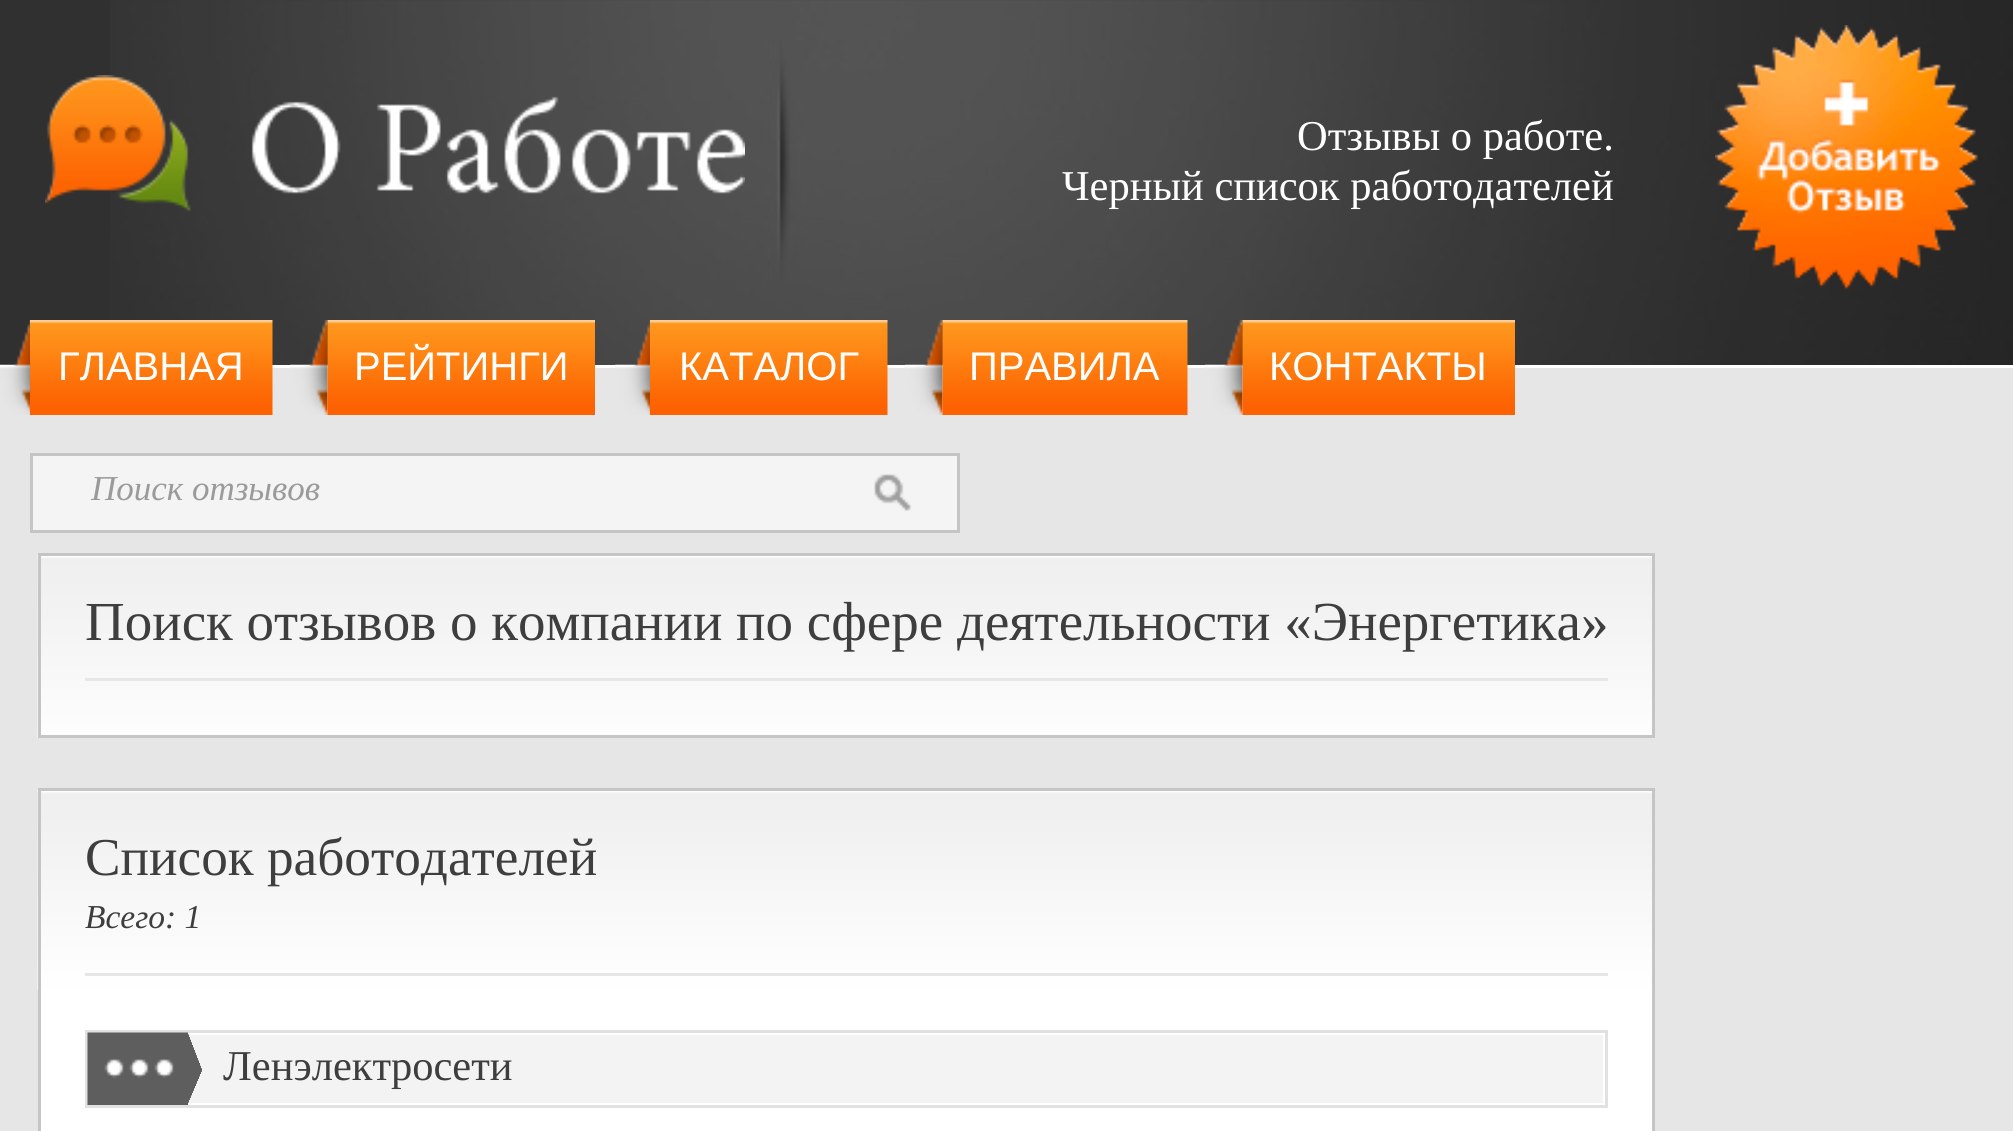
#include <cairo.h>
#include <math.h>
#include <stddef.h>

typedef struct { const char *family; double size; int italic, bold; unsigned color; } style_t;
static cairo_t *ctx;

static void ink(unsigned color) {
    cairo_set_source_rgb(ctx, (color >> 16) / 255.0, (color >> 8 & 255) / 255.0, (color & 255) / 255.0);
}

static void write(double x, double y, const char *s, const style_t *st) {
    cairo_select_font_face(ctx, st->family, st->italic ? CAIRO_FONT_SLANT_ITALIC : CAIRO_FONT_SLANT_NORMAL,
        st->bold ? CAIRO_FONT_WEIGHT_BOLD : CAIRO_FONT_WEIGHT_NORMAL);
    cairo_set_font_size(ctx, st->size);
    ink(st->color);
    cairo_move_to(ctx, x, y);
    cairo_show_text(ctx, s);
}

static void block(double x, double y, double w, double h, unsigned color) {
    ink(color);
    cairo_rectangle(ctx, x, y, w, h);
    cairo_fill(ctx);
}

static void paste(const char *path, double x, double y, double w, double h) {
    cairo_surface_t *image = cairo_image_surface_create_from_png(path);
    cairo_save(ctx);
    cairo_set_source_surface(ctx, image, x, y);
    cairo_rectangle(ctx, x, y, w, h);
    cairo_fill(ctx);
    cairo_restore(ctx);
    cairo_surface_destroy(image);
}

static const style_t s1 = {"Liberation Serif", 42.5, 0, 0, 0xffffff};
static const style_t s2 = {"Liberation Sans", 40, 0, 0, 0xffffff};
static const style_t s3 = {"Liberation Serif", 35, 1, 0, 0x9a9a9a};
static const style_t s4 = {"Liberation Serif", 55, 0, 0, 0x3e3e3e};
static const style_t s5 = {"Liberation Serif", 53.25, 0, 0, 0x3e3e3e};
static const style_t s6 = {"Liberation Serif", 33.5, 1, 0, 0x3e3e3e};
static const style_t s7 = {"Liberation Serif", 42.5, 0, 0, 0x3e3e3e};

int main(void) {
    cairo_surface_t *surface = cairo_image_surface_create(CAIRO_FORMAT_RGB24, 2013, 1131);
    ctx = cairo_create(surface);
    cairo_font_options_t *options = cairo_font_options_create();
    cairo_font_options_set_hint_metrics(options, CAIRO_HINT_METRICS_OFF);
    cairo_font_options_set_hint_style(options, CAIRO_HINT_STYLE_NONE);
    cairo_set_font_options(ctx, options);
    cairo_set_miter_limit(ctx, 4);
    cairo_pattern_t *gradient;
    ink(0x303030);
    cairo_paint(ctx);
    paste("pic1.png", 110, 0, 1903, 365);
    paste("pic2.png", 45, 75, 700, 137);
    write(1297, 150, "Отзывы о работе.", &s1);
    write(1062, 200, "Черный список работодателей", &s1);
    paste("pic3.png", 1715, 25, 263, 265);
    block(0, 368, 2013, 763, 0xe6e6e6);
    block(0, 365, 2013, 3, 0xffffff);
    paste("pic4.png", 0, 320, 30, 95);
    paste("pic5.png", 30, 320, 243, 95);
    write(58, 380, "ГЛАВНАЯ", &s2);
    paste("pic6.png", 290, 320, 38, 95);
    paste("pic7.png", 327, 320, 268, 95);
    write(354, 380, "РЕЙТИНГИ", &s2);
    paste("pic8.png", 615, 320, 35, 95);
    paste("pic9.png", 650, 320, 238, 95);
    write(679, 380, "КАТАЛОГ", &s2);
    paste("pic10.png", 905, 320, 38, 95);
    paste("pic11.png", 942, 320, 246, 95);
    write(969, 380, "ПРАВИЛА", &s2);
    paste("pic12.png", 1205, 320, 38, 95);
    paste("pic13.png", 1242, 320, 273, 95);
    write(1269, 380, "КОНТАКТЫ", &s2);
    ink(0xf4f4f4);
    cairo_rectangle(ctx, 31.5, 454.5, 927, 77);
    cairo_fill_preserve(ctx);
    ink(0xc5c5c5);
    cairo_set_line_width(ctx, 3);
    cairo_stroke(ctx);
    write(91, 500, "Поиск отзывов", &s3);
    paste("pic14.png", 874, 474, 38, 38);
    paste("pic15.png", 37, 555, 1615, 183);
    cairo_rectangle(ctx, 39.5, 554.5, 1614, 182);
    ink(0xc5c5c5);
    cairo_stroke(ctx);
    block(85, 678, 1523, 3, 0xe6e6e6);
    write(85, 640, "Поиск отзывов о компании по сфере деятельности «Энергетика»", &s4);
    block(41, 990, 1611, 141, 0xffffff);
    paste("pic16.png", 37, 790, 1615, 200);
    cairo_rectangle(ctx, 39.5, 789.5, 1614, 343);
    ink(0xc5c5c5);
    cairo_stroke(ctx);
    block(85, 973, 1523, 3, 0xe6e6e6);
    write(85, 875, "Список работодателей", &s5);
    write(85, 928, "Всего: 1", &s6);
    cairo_rectangle(ctx, 86.5, 1031.5, 1520, 75);
    ink(0xe1e1e1);
    cairo_stroke(ctx);
    paste("pic17.png", 87, 1032, 101, 73);
    block(188, 1035, 1415, 68, 0xf3f3f3);
    gradient = cairo_pattern_create_linear(182, 1056, 208, 1046);
    cairo_pattern_add_color_stop_rgba(gradient, 0.49, 0.369, 0.369, 0.369, 1);
    cairo_pattern_add_color_stop_rgba(gradient, 0.5, 0.369, 0.369, 0.369, 0);
    cairo_set_source(ctx, gradient);
    cairo_pattern_destroy(gradient);
    cairo_rectangle(ctx, 188, 1034, 14, 36);
    cairo_fill(ctx);
    gradient = cairo_pattern_create_linear(182, 1082, 208, 1093);
    cairo_pattern_add_color_stop_rgba(gradient, 0.49, 0.369, 0.369, 0.369, 1);
    cairo_pattern_add_color_stop_rgba(gradient, 0.5, 0.369, 0.369, 0.369, 0);
    cairo_set_source(ctx, gradient);
    cairo_pattern_destroy(gradient);
    cairo_rectangle(ctx, 188, 1070, 14, 33);
    cairo_fill(ctx);
    write(223, 1080, "Ленэлектросети", &s7);
    cairo_surface_write_to_png(surface, "screenshot.png");
    cairo_font_options_destroy(options);
    cairo_destroy(ctx);
    cairo_surface_destroy(surface);
    return 0;
}
